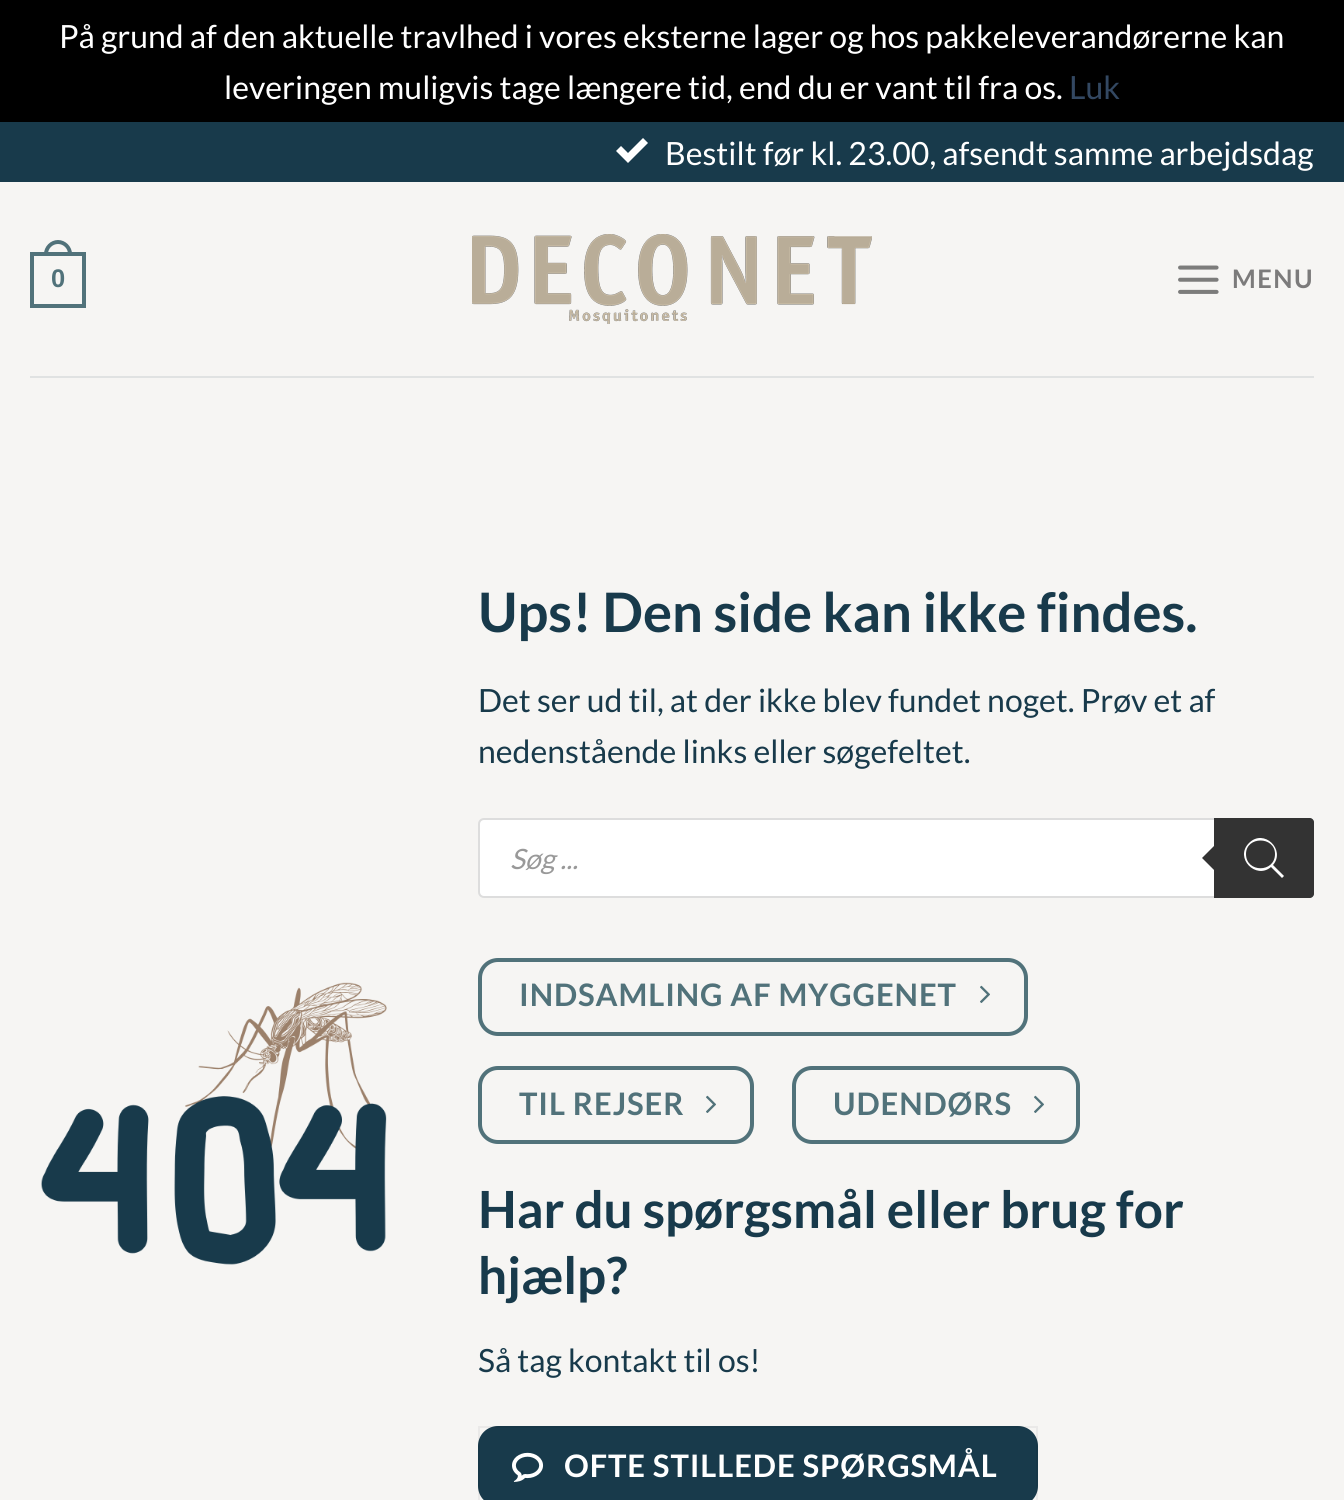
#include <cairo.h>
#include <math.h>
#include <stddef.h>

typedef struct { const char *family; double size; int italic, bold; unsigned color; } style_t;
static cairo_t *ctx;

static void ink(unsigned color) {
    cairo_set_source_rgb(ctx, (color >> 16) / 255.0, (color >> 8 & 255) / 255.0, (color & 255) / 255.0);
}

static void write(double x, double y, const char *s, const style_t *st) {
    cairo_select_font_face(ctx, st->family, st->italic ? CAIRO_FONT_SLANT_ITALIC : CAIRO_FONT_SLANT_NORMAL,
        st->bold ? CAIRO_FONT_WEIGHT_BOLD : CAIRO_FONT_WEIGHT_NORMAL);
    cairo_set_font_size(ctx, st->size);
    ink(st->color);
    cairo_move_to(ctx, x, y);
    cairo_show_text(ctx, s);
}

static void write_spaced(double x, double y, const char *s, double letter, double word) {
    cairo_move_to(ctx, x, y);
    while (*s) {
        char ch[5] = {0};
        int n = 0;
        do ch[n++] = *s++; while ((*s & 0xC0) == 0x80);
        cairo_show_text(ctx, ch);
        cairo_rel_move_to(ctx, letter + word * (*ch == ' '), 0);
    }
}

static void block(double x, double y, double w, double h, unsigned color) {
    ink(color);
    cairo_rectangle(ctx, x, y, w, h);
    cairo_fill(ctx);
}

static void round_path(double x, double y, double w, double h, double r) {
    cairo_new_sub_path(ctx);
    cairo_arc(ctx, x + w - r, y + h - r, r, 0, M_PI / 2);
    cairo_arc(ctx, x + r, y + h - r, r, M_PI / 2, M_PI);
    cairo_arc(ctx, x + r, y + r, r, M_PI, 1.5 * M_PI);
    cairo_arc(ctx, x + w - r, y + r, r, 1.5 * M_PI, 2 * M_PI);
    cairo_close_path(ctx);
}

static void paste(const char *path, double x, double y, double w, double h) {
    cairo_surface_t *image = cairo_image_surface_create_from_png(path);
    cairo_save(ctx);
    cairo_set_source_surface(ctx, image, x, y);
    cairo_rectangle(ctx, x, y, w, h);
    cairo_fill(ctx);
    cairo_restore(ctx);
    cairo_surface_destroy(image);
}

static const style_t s1 = {"Lato", 32, 0, 0, 0xffffff};
static const style_t s2 = {"Lato", 32, 0, 0, 0x334862};
static const style_t s3 = {"Liberation Sans", 25.5, 0, 1, 0x51727a};
static const style_t s4 = {"Lato", 54.4, 0, 1, 0x183a4b};
static const style_t s5 = {"Lato", 32, 0, 0, 0x183a4b};
static const style_t s6 = {"Lato", 28, 1, 0, 0x999999};
static const style_t s7 = {"Lato", 51.25, 0, 1, 0x183a4b};

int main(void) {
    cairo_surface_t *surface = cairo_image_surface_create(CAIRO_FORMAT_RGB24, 1344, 1500);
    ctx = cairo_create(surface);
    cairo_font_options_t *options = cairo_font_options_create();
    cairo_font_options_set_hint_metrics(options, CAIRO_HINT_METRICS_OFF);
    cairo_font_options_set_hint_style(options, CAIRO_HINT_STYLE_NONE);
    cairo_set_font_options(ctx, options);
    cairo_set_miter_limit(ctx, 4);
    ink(0x000000);
    cairo_paint(ctx);
    write(59, 48, "På grund af den aktuelle travlhed i vores eksterne lager og hos pakkeleverandørerne kan", &s1);
    write(224, 99, "leveringen muligvis tage længere tid, end du er vant til fra os.", &s1);
    write(1069, 99, "Luk", &s2);
    block(0, 182, 1344, 1318, 0xf6f5f3);
    block(0, 122, 1344, 60, 0x183a4b);
    ink(0xffffff);
    cairo_new_path(ctx);
    cairo_move_to(ctx, 643, 138);
    cairo_line_to(ctx, 628, 153);
    cairo_line_to(ctx, 621, 146);
    cairo_line_to(ctx, 616, 151);
    cairo_line_to(ctx, 628, 163);
    cairo_line_to(ctx, 648, 143);
    cairo_close_path(ctx);
    cairo_fill(ctx);
    write(665, 165, "Bestilt før kl. 23.00, afsendt samme arbejdsdag", &s1);
    cairo_rectangle(ctx, 32, 254, 52, 52);
    ink(0x51727a);
    cairo_set_line_width(ctx, 4);
    cairo_stroke(ctx);
    cairo_set_fill_rule(ctx, CAIRO_FILL_RULE_EVEN_ODD);
    cairo_new_path(ctx);
    cairo_move_to(ctx, 58, 240);
    cairo_curve_to(ctx, 65.5, 240, 72, 246.5, 72, 254);
    cairo_line_to(ctx, 72, 256);
    cairo_line_to(ctx, 44, 256);
    cairo_line_to(ctx, 44, 254);
    cairo_curve_to(ctx, 44, 246.5, 50.5, 240, 58, 240);
    cairo_close_path(ctx);
    cairo_move_to(ctx, 58, 244);
    cairo_curve_to(ctx, 63.5, 244, 68, 248.5, 68, 254);
    cairo_line_to(ctx, 68, 256);
    cairo_line_to(ctx, 48, 256);
    cairo_line_to(ctx, 48, 254);
    cairo_curve_to(ctx, 48, 248.5, 52.5, 244, 58, 244);
    cairo_close_path(ctx);
    cairo_fill(ctx);
    write(51, 287, "0", &s3);
    paste("pic1.png", 472, 234, 400, 90);
    paste("pic2.png", 1178, 265, 41, 29);
    cairo_select_font_face(ctx, "Lato", CAIRO_FONT_SLANT_NORMAL, CAIRO_FONT_WEIGHT_BOLD);
    ink(0x7c7b7b);
    write_spaced(1232, 288, "MENU", 1.5, 0);
    block(30, 376, 1284, 2, 0xe0e2e2);
    paste("pic3.png", 41, 982, 346, 283);
    write(478, 632, "Ups! Den side kan ikke findes.", &s4);
    write(478, 712, "Det ser ud til, at der ikke blev fundet noget. Prøv et af", &s5);
    write(478, 763, "nedenstående links eller søgefeltet.", &s5);
    ink(0xffffff);
    round_path(479, 819, 834, 78, 5);
    cairo_fill_preserve(ctx);
    ink(0xdddddd);
    cairo_set_line_width(ctx, 2);
    cairo_stroke(ctx);
    write(510, 869, "Søg ...", &s6);
    ink(0x333333);
    cairo_new_path(ctx);
    cairo_move_to(ctx, 1214, 818);
    cairo_line_to(ctx, 1310, 818);
    cairo_curve_to(ctx, 1312, 818, 1314, 820, 1314, 822);
    cairo_line_to(ctx, 1314, 894);
    cairo_curve_to(ctx, 1314, 896, 1312, 898, 1310, 898);
    cairo_line_to(ctx, 1214, 898);
    cairo_close_path(ctx);
    cairo_fill(ctx);
    cairo_set_fill_rule(ctx, CAIRO_FILL_RULE_WINDING);
    cairo_new_path(ctx);
    cairo_move_to(ctx, 1218, 842);
    cairo_line_to(ctx, 1218, 874);
    cairo_line_to(ctx, 1202, 858);
    cairo_close_path(ctx);
    cairo_fill(ctx);
    ink(0xffffff);
    cairo_new_path(ctx);
    cairo_move_to(ctx, 1284, 876);
    cairo_line_to(ctx, 1273, 865);
    cairo_curve_to(ctx, 1286, 850, 1264, 828, 1249, 843);
    cairo_curve_to(ctx, 1234, 858, 1256, 880, 1271, 867);
    cairo_line_to(ctx, 1282, 878);
    cairo_close_path(ctx);
    cairo_move_to(ctx, 1246, 854);
    cairo_curve_to(ctx, 1246, 836, 1275, 836, 1275, 854);
    cairo_curve_to(ctx, 1275, 873, 1246, 873, 1246, 854);
    cairo_close_path(ctx);
    cairo_fill(ctx);
    round_path(480, 960, 546, 74, 18);
    ink(0x51727a);
    cairo_set_line_width(ctx, 4);
    cairo_stroke(ctx);
    cairo_select_font_face(ctx, "Lato", CAIRO_FONT_SLANT_NORMAL, CAIRO_FONT_WEIGHT_BOLD);
    cairo_set_font_size(ctx, 31);
    write_spaced(519, 1006, "INDSAMLING AF MYGGENET", 0.9, 0);
    paste("pic4.png", 980, 985, 10, 18);
    round_path(480, 1068, 272, 74, 18);
    cairo_stroke(ctx);
    write_spaced(519, 1115, "TIL REJSER", 0.9, 0);
    paste("pic4.png", 706, 1095, 10, 18);
    round_path(794, 1068, 284, 74, 18);
    cairo_stroke(ctx);
    write_spaced(833, 1115, "UDENDØRS", 0.9, 0);
    paste("pic4.png", 1034, 1095, 10, 18);
    write(478, 1228, "Har du spørgsmål eller brug for", &s7);
    write(478, 1294, "hjælp?", &s7);
    write(478, 1372, "Så tag kontakt til os!", &s5);
    round_path(478, 1426, 560, 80, 20);
    cairo_fill(ctx);
    cairo_rectangle(ctx, 479, 1427, 558, 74);
    cairo_set_source_rgba(ctx, 0, 0, 0, 0.05);
    cairo_set_line_width(ctx, 2);
    cairo_stroke(ctx);
    paste("pic5.png", 512, 1452, 32, 30);
    cairo_select_font_face(ctx, "Lato", CAIRO_FONT_SLANT_NORMAL, CAIRO_FONT_WEIGHT_BOLD);
    cairo_set_font_size(ctx, 31);
    ink(0xffffff);
    write_spaced(564, 1477, "OFTE STILLEDE SPØRGSMÅL", 0.9, 0);
    cairo_surface_write_to_png(surface, "screenshot.png");
    cairo_font_options_destroy(options);
    cairo_destroy(ctx);
    cairo_surface_destroy(surface);
    return 0;
}
